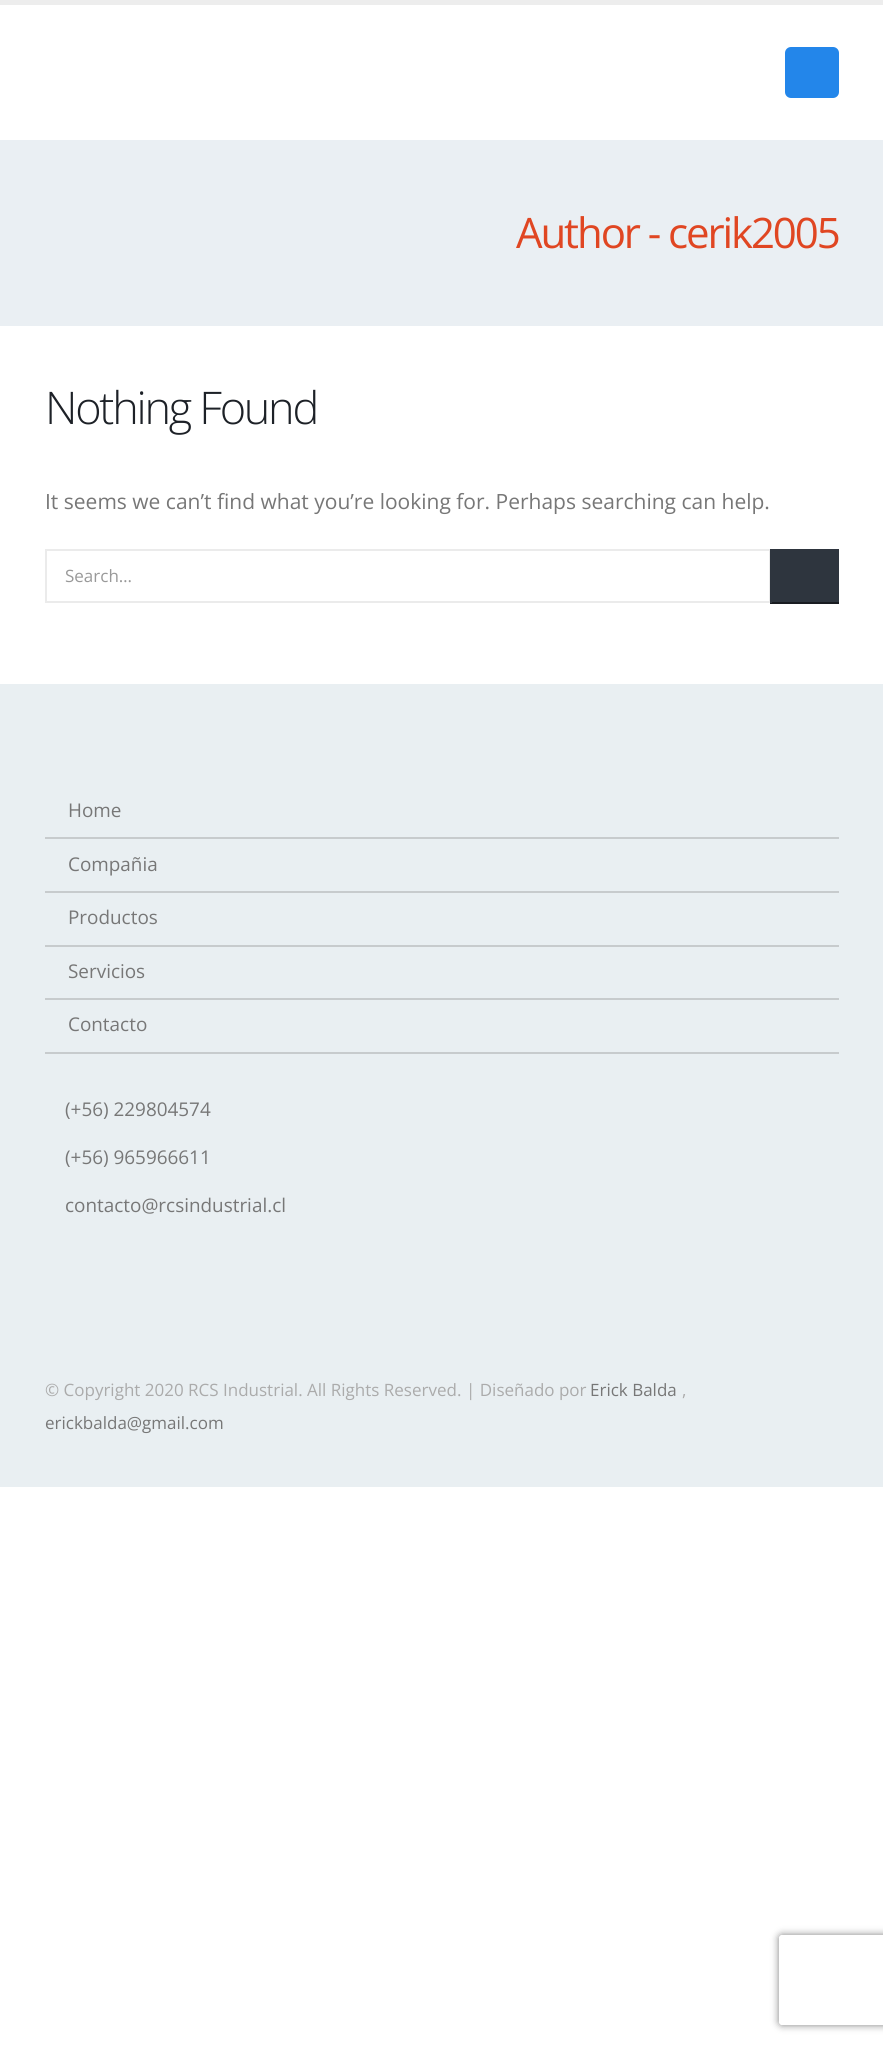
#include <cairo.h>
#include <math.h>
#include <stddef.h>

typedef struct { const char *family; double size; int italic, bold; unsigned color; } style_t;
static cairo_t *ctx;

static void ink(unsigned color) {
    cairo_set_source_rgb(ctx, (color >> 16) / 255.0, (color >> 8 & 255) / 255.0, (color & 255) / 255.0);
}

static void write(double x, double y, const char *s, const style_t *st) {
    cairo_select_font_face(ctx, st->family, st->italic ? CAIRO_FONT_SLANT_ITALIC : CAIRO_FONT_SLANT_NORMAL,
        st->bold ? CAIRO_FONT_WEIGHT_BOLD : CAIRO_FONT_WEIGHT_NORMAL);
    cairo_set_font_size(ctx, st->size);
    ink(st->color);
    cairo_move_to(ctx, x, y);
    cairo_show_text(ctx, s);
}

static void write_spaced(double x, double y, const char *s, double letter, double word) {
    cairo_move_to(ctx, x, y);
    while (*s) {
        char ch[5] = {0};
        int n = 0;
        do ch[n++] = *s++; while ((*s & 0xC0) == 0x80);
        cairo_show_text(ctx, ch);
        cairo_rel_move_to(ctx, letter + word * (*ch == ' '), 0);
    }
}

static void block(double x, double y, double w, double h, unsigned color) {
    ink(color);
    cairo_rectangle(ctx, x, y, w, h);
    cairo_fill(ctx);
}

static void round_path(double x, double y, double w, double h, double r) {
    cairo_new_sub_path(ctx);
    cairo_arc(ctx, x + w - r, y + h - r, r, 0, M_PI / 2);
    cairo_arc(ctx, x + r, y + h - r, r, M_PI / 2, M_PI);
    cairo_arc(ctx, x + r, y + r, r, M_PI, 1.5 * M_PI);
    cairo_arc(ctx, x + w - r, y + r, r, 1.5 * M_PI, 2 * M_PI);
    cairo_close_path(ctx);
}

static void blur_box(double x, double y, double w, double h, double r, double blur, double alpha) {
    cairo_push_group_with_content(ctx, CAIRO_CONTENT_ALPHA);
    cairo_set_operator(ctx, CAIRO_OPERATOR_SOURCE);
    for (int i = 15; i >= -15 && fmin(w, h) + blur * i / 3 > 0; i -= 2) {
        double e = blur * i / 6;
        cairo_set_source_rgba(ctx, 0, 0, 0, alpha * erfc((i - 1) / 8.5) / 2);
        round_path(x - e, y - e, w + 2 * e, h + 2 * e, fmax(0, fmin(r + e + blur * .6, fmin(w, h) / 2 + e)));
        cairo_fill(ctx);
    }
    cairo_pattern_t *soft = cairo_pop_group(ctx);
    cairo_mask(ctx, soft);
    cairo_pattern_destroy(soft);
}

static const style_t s1 = {"Open Sans", 21, 0, 0, 0x777777};
static const style_t s2 = {"Open Sans", 17, 0, 0, 0x999999};
static const style_t s3 = {"Open Sans", 18.9, 0, 0, 0x777777};
static const style_t s4 = {"Open Sans", 17, 0, 0, 0xababab};
static const style_t s5 = {"Open Sans", 17, 0, 0, 0x777777};

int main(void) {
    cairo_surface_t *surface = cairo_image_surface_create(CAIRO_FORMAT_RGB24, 883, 2046);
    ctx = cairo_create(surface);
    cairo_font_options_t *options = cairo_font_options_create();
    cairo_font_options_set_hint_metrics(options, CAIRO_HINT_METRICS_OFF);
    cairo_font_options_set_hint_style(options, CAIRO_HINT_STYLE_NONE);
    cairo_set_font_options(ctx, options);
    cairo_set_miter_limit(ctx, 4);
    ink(0xffffff);
    cairo_paint(ctx);
    block(0, 0, 883, 5, 0xededed);
    ink(0x2386ea);
    round_path(785, 47, 54, 51, 6);
    cairo_fill(ctx);
    block(0, 140, 883, 186, 0xeaeff3);
    cairo_select_font_face(ctx, "Open Sans", CAIRO_FONT_SLANT_NORMAL, CAIRO_FONT_WEIGHT_NORMAL);
    cairo_set_font_size(ctx, 42);
    ink(0xe04622);
    write_spaced(516, 248, "Author - cerik2005", -2.1, 0);
    cairo_select_font_face(ctx, "Open Sans Light", CAIRO_FONT_SLANT_NORMAL, CAIRO_FONT_WEIGHT_NORMAL);
    cairo_set_font_size(ctx, 45);
    ink(0x1d2127);
    write_spaced(45, 424, "Nothing Found", -2.25, 0);
    write(45, 509, "It seems we can’t find what you’re looking for. Perhaps searching can help.", &s1);
    cairo_rectangle(ctx, 46, 550, 724, 52);
    ink(0xebebeb);
    cairo_stroke(ctx);
    write(65, 582, "Search…", &s2);
    block(772, 549, 67, 53, 0x2e353e);
    block(770, 602, 69, 2, 0x191c21);
    block(770, 549, 2, 54, 0x2e353e);
    block(0, 684, 883, 803, 0xe9eff2);
    block(45, 1052, 794, 2, 0xc7cbcd);
    write(68, 817, "Home", &s3);
    block(45, 837, 794, 2, 0xc7cbcd);
    write(68, 871, "Compañia", &s3);
    block(45, 891, 794, 2, 0xc7cbcd);
    write(68, 924, "Productos", &s3);
    block(45, 945, 794, 2, 0xc7cbcd);
    write(68, 978, "Servicios", &s3);
    block(45, 998, 794, 2, 0xc7cbcd);
    write(68, 1031, "Contacto", &s3);
    write(65, 1116, "(+56) 229804574", &s3);
    write(65, 1164, "(+56) 965966611", &s3);
    write(65, 1212, "contacto@rcsindustrial.cl", &s3);
    write(45, 1396, "© Copyright 2020 RCS Industrial. All Rights Reserved.", &s4);
    write(466, 1396, "| Diseñado por", &s4);
    write(590, 1396, "Erick Balda", &s5);
    write(682, 1396, ",", &s4);
    write(45, 1429, "erickbalda@gmail.com", &s5);
    cairo_save(ctx);
    cairo_set_fill_rule(ctx, CAIRO_FILL_RULE_EVEN_ODD);
    cairo_new_path(ctx);
    cairo_move_to(ctx, 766, 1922);
    cairo_line_to(ctx, 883, 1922);
    cairo_line_to(ctx, 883, 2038);
    cairo_line_to(ctx, 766, 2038);
    cairo_close_path(ctx);
    cairo_move_to(ctx, 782, 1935);
    cairo_line_to(ctx, 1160, 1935);
    cairo_curve_to(ctx, 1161.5, 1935, 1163, 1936.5, 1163, 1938);
    cairo_line_to(ctx, 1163, 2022);
    cairo_curve_to(ctx, 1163, 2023.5, 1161.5, 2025, 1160, 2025);
    cairo_line_to(ctx, 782, 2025);
    cairo_curve_to(ctx, 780.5, 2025, 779, 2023.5, 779, 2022);
    cairo_line_to(ctx, 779, 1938);
    cairo_curve_to(ctx, 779, 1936.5, 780.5, 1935, 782, 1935);
    cairo_close_path(ctx);
    cairo_clip(ctx);
    ink(0x808080);
    blur_box(779, 1935, 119, 90, 3, 4, 1);
    cairo_restore(ctx);
    cairo_surface_write_to_png(surface, "screenshot.png");
    cairo_font_options_destroy(options);
    cairo_destroy(ctx);
    cairo_surface_destroy(surface);
    return 0;
}
